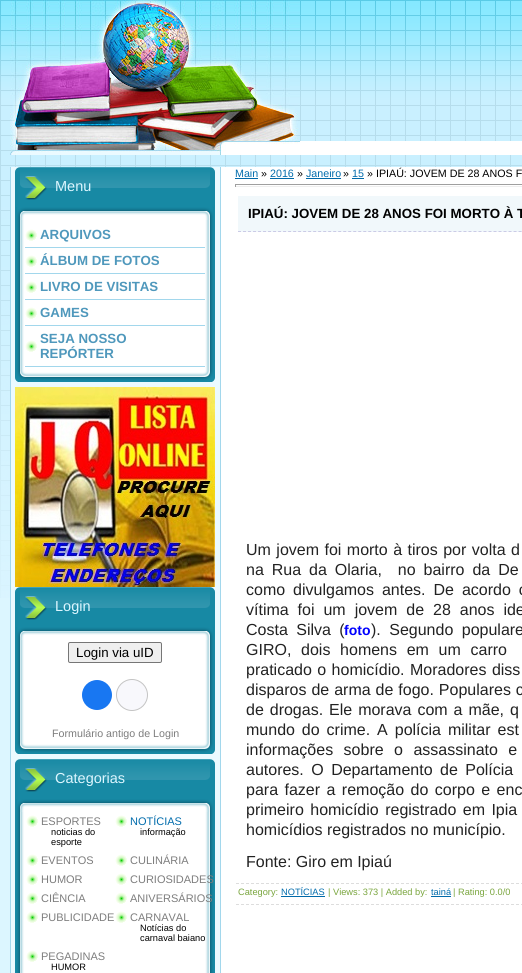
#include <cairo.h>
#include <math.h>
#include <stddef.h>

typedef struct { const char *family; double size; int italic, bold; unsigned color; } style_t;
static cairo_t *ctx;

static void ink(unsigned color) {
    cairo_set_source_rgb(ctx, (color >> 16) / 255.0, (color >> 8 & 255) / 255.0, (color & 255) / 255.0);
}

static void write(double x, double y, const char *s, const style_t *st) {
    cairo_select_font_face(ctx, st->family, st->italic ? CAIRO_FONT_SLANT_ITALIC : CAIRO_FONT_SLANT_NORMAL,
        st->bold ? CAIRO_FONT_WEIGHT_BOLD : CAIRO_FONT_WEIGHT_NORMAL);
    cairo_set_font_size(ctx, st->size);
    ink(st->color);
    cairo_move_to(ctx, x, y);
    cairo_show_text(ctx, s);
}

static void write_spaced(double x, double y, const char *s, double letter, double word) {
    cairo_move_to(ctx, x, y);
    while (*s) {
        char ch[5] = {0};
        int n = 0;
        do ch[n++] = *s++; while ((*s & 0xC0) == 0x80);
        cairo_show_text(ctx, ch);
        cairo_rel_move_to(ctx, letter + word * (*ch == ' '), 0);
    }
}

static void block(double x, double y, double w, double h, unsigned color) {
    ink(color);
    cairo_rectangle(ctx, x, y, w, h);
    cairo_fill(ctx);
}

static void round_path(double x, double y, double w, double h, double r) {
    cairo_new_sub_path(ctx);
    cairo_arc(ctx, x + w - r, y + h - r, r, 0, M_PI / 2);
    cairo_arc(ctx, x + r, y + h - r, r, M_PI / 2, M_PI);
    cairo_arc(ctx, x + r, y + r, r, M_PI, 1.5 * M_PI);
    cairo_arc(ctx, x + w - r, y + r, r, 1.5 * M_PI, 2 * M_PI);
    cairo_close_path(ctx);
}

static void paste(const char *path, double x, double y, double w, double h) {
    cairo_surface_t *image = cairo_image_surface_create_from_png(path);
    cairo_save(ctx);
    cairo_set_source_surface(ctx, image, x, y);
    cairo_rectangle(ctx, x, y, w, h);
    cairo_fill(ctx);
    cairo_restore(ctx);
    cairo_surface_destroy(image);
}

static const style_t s1 = {"Liberation Sans", 14.5, 0, 0, 0xdcf6ff};
static const style_t s2 = {"Liberation Sans", 13.3, 0, 1, 0x4f98bc};
static const style_t s3 = {"Liberation Sans", 13.3, 0, 0, 0x000000};
static const style_t s4 = {"Liberation Sans", 10.7, 0, 0, 0x7d7d7d};
static const style_t s5 = {"Liberation Sans", 11, 0, 0, 0x7d7d7d};
static const style_t s6 = {"Liberation Sans", 9.25, 0, 0, 0x000000};
static const style_t s7 = {"Liberation Sans", 11, 0, 0, 0x016cac};
static const style_t s8 = {"Liberation Sans", 10.7, 0, 0, 0x016cac};
static const style_t s9 = {"Liberation Sans", 10.7, 0, 0, 0x000000};
static const style_t s10 = {"Liberation Sans", 13.3, 0, 1, 0x000000};
static const style_t s11 = {"Liberation Sans", 14, 0, 1, 0x0000ff};
static const style_t s12 = {"Liberation Sans", 16, 0, 0, 0x222222};
static const style_t s13 = {"Liberation Sans", 9.25, 0, 0, 0x79a53d};
static const style_t s14 = {"Liberation Sans", 9.25, 0, 0, 0x016cac};

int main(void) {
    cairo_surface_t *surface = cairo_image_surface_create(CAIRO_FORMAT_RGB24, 522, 973);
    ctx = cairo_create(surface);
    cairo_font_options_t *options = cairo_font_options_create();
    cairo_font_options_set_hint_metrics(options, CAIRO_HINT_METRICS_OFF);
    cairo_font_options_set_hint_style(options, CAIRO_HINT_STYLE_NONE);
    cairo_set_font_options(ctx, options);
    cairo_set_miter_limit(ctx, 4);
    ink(0xdcf6ff);
    cairo_paint(ctx);
    paste("pic1.png", 0, 0, 522, 598);
    block(300, 141, 222, 14, 0xffffff);
    paste("pic2.png", 10, 0, 290, 155);
    paste("pic3.png", 10, 167, 215, 806);
    paste("pic4.png", 15, 207, 200, 175);
    block(15, 200, 200, 7, 0x1789a4);
    paste("pic5.png", 15, 167, 200, 33);
    write(55, 191, "Menu", &s1);
    paste("pic6.png", 17, 207, 196, 13);
    paste("pic7.png", 25, 229, 12, 12);
    block(25, 247, 180, 1, 0xa2d7ec);
    write(40, 239, "ARQUIVOS", &s2);
    paste("pic7.png", 25, 255, 12, 12);
    block(25, 273, 180, 1, 0xa2d7ec);
    write(40, 265, "ÁLBUM DE FOTOS", &s2);
    paste("pic7.png", 25, 281, 12, 12);
    block(25, 299, 180, 1, 0xa2d7ec);
    write(40, 291, "LIVRO DE VISITAS", &s2);
    paste("pic7.png", 25, 307, 12, 12);
    block(25, 325, 180, 1, 0xa2d7ec);
    write(40, 317, "GAMES", &s2);
    paste("pic7.png", 25, 340, 12, 12);
    block(25, 366, 180, 1, 0xa2d7ec);
    write(40, 343, "SEJA NOSSO", &s2);
    write(40, 358, "REPÓRTER", &s2);
    paste("pic8.png", 15, 387, 200, 200);
    paste("pic9.png", 15, 627, 200, 127);
    block(15, 620, 200, 7, 0x1789a4);
    paste("pic5.png", 15, 587, 200, 33);
    write(55, 611, "Login", &s1);
    paste("pic6.png", 17, 627, 196, 13);
    ink(0xefefef);
    round_path(68.5, 642.5, 93, 20, 1.5);
    cairo_fill_preserve(ctx);
    ink(0x767676);
    cairo_set_line_width(ctx, 1);
    cairo_stroke(ctx);
    write(76, 657, "Login via uID", &s3);
    ink(0x1877f2);
    cairo_new_path(ctx);
    cairo_arc(ctx, 97, 695, 15, 0, 2 * M_PI);
    cairo_fill(ctx);
    ink(0xf8f8fc);
    cairo_arc(ctx, 132, 695, 15.5, 0, 2 * M_PI);
    cairo_fill_preserve(ctx);
    ink(0xc4c4c4);
    cairo_stroke(ctx);
    write(52, 737, "Formulário antigo de Login", &s4);
    paste("pic10.png", 15, 799, 200, 174);
    block(15, 792, 200, 7, 0x1789a4);
    paste("pic5.png", 15, 759, 200, 33);
    write(55, 783, "Categorias", &s1);
    paste("pic6.png", 17, 799, 196, 13);
    paste("pic7.png", 26, 815, 12, 12);
    write(41, 825, "ESPORTES", &s5);
    write(51, 835, "noticias do", &s6);
    write(51, 845, "esporte", &s6);
    paste("pic7.png", 115, 815, 12, 12);
    write(130, 825, "NOTÍCIAS", &s7);
    write(140, 835, "informação", &s6);
    paste("pic7.png", 26, 854, 12, 12);
    write(41, 864, "EVENTOS", &s5);
    paste("pic7.png", 115, 854, 12, 12);
    write(130, 864, "CULINÁRIA", &s5);
    paste("pic7.png", 26, 873, 12, 12);
    write(41, 883, "HUMOR", &s5);
    paste("pic7.png", 115, 873, 12, 12);
    write(130, 883, "CURIOSIDADES", &s5);
    paste("pic7.png", 26, 892, 12, 12);
    write(41, 902, "CIÊNCIA", &s5);
    paste("pic7.png", 115, 892, 12, 12);
    write(130, 902, "ANIVERSÁRIOS", &s5);
    paste("pic7.png", 26, 911, 12, 12);
    write(41, 921, "PUBLICIDADE", &s5);
    paste("pic7.png", 115, 911, 12, 12);
    write(130, 921, "CARNAVAL", &s5);
    write(140, 931, "Notícias do", &s6);
    write(140, 941, "carnaval baiano", &s6);
    paste("pic7.png", 26, 950, 12, 12);
    write(41, 960, "PEGADINAS", &s5);
    write(51, 970, "HUMOR", &s6);
    block(225, 167, 297, 806, 0xffffff);
    write(235, 177, "Main", &s8);
    block(235, 178, 23, 1, 0x0069a9);
    write(261, 177, "»", &s9);
    write(270, 177, "2016", &s8);
    block(270, 178, 24, 1, 0x0069a9);
    write(297, 177, "»", &s9);
    write(306, 177, "Janeiro", &s8);
    block(306, 178, 35, 1, 0x0069a9);
    write(343, 177, "»", &s9);
    write(352, 177, "15", &s8);
    block(352, 178, 12, 1, 0x0069a9);
    write(367, 177, "» IPIAÚ: JOVEM DE 28 ANOS F", &s9);
    block(235, 184, 287, 1, 0x9f9f9f);
    block(235, 186, 287, 1, 0xeeeeee);
    block(235, 184, 1, 3, 0x9f9f9f);
    block(238, 196, 284, 36, 0xf1f8fb);
    cairo_new_path(ctx);
    cairo_move_to(ctx, 238, 231.5);
    cairo_line_to(ctx, 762, 231.5);
    ink(0xcbcbe6);
    cairo_set_dash(ctx, (double[]){3, 2.01}, 2, 0);
    cairo_stroke(ctx);
    write(248, 218, "IPIAÚ: JOVEM DE 28 ANOS FOI MORTO À T", &s10);
    cairo_select_font_face(ctx, "Liberation Sans", CAIRO_FONT_SLANT_NORMAL, CAIRO_FONT_WEIGHT_NORMAL);
    cairo_set_font_size(ctx, 16);
    ink(0x222222);
    write_spaced(246, 555, "Um jovem foi morto à tiros por volta d", 0, 1);
    write_spaced(246, 575, "na Rua da Olaria,  no bairro da De", 0, 3.5);
    write_spaced(246, 595, "como divulgamos antes. De acordo c", 0, 3.5);
    write_spaced(246, 615, "vítima foi um jovem de 28 anos ide", 0, 4.5);
    write_spaced(246, 635, "Costa Silva (", 0, 4);
    write(344, 635, "foto", &s11);
    block(344, 623, 1, 1, 0xfefefe);
    cairo_select_font_face(ctx, "Liberation Sans", CAIRO_FONT_SLANT_NORMAL, CAIRO_FONT_WEIGHT_NORMAL);
    cairo_set_font_size(ctx, 16);
    ink(0x222222);
    write_spaced(371, 635, "). Segundo populare", 0, 4);
    write_spaced(246, 655, "GIRO, dois homens em um carro", 0, 5.25);
    write_spaced(246, 675, "praticado o homicídio. Moradores diss", 0, 1);
    write_spaced(246, 695, "disparos de arma de fogo. Populares c", 0, 0.5);
    write_spaced(246, 715, "de drogas. Ele morava com a mãe, q", 0, 1.5);
    write_spaced(246, 735, "mundo do crime. A polícia militar est", 0, 2.5);
    write_spaced(246, 755, "informações sobre o assassinato e", 0, 6);
    write_spaced(246, 775, "autores. O Departamento de Polícia", 0, 3);
    write_spaced(246, 795, "para fazer a remoção do corpo e enc", 0, 2);
    write_spaced(246, 815, "primeiro homicídio registrado em Ipia", 0, 2);
    write(246, 835, "homicídios registrados no município.", &s12);
    write(246, 867, "Fonte: Giro em Ipiaú", &s12);
    cairo_new_path(ctx);
    cairo_move_to(ctx, 236, 883.5);
    cairo_line_to(ctx, 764, 883.5);
    ink(0xdddddd);
    cairo_set_dash(ctx, (double[]){3, 2}, 2, 0);
    cairo_stroke(ctx);
    cairo_new_path(ctx);
    cairo_move_to(ctx, 236, 904.5);
    cairo_line_to(ctx, 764, 904.5);
    cairo_stroke(ctx);
    write(238, 895, "Category:", &s13);
    write(281, 895, "NOTÍCIAS", &s14);
    block(281, 896, 44, 1, 0x0069a9);
    write(328, 895, "| Views: 373 | Added by:", &s13);
    write(431, 895, "tainá", &s14);
    block(431, 896, 20, 1, 0x0069a9);
    write(453, 895, "| Rating: 0.0/0", &s13);
    cairo_surface_write_to_png(surface, "screenshot.png");
    cairo_font_options_destroy(options);
    cairo_destroy(ctx);
    cairo_surface_destroy(surface);
    return 0;
}
